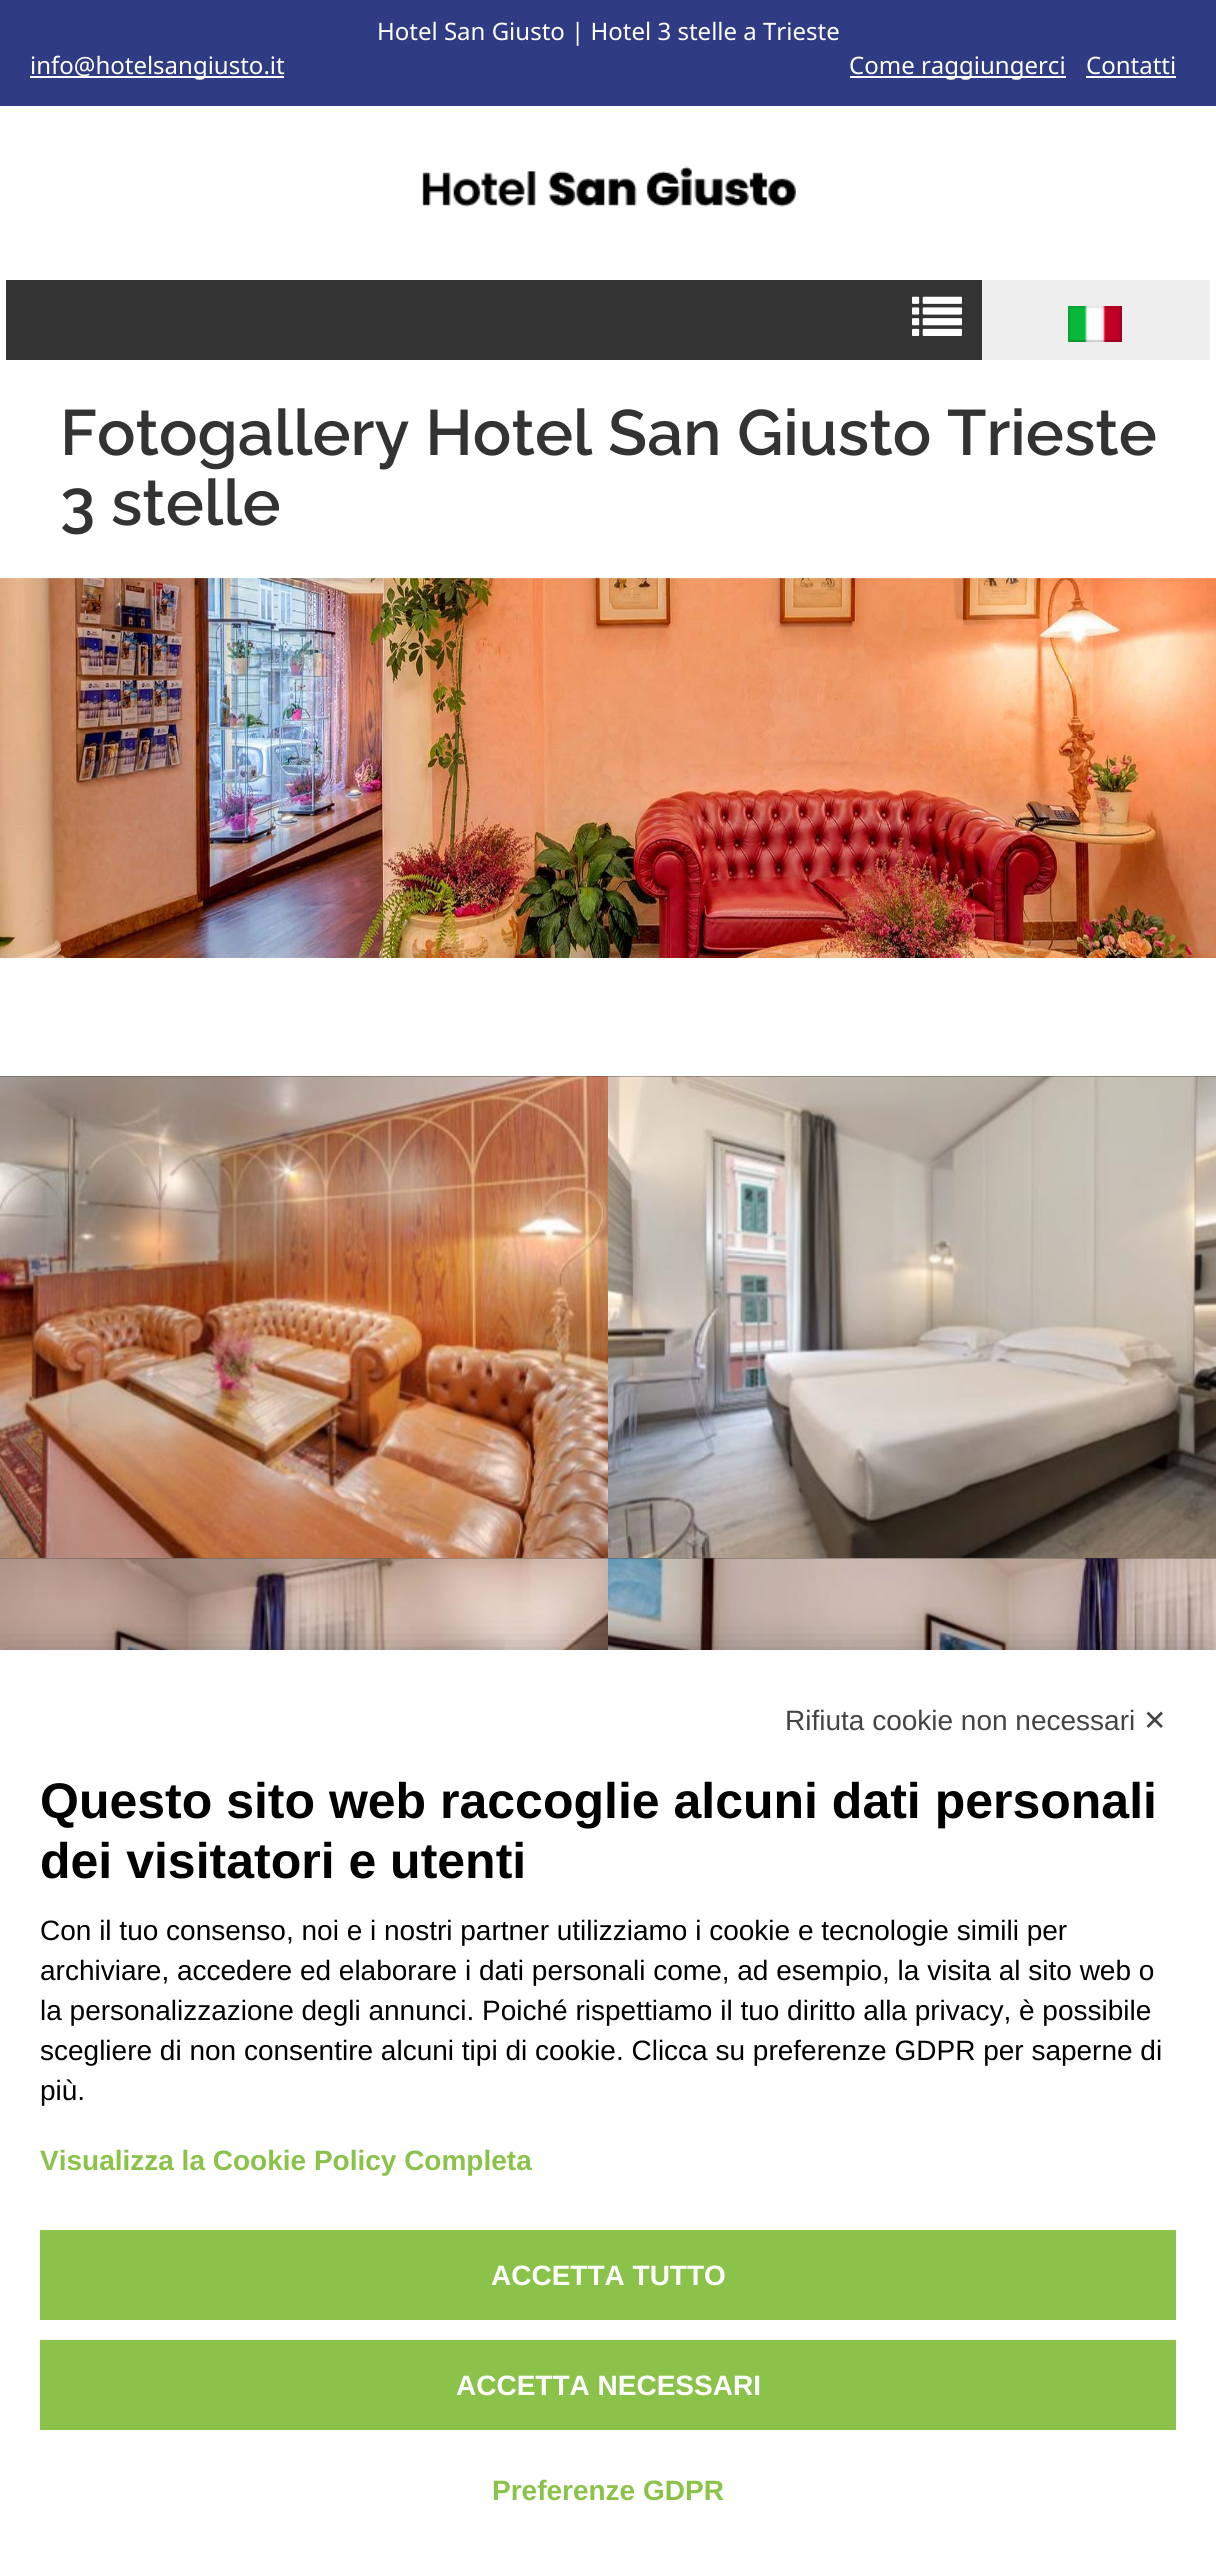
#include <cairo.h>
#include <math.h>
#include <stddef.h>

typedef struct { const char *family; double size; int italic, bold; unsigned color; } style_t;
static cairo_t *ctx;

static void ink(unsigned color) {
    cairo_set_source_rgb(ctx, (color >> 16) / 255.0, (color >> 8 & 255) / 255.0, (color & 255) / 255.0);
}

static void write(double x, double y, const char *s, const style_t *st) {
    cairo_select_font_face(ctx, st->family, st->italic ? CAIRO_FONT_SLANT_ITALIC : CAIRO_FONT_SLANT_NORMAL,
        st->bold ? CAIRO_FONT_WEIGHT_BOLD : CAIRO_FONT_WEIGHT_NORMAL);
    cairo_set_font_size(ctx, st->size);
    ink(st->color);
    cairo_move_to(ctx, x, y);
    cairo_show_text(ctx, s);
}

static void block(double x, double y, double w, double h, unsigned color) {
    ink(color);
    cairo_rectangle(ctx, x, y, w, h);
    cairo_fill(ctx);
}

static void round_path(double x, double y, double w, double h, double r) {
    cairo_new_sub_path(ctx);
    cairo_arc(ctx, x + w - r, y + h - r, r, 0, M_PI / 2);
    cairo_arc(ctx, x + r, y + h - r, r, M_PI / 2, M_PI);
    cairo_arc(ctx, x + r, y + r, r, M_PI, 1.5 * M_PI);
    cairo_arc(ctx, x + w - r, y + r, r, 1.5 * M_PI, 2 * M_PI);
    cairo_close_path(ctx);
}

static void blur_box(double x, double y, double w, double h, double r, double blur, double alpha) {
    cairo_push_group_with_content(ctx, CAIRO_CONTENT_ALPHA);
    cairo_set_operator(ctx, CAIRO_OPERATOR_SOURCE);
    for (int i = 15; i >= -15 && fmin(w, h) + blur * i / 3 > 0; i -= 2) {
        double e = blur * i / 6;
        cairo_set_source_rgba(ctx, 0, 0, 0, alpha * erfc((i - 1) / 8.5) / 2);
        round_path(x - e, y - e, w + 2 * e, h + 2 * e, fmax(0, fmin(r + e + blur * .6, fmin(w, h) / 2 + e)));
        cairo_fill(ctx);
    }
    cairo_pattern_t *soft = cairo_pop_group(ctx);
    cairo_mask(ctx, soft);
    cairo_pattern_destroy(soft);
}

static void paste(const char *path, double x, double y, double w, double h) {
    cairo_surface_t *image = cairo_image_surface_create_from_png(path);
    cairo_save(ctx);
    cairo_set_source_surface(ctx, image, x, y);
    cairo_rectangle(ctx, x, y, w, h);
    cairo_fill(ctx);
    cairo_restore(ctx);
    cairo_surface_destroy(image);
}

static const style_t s1 = {"Noto Sans", 24, 0, 0, 0xffffff};
static const style_t s2 = {"Raleway SemiBold", 64, 0, 0, 0x333333};
static const style_t s3 = {"Liberation Sans", 28, 0, 0, 0x444444};
static const style_t s4 = {"DejaVu Sans", 28, 0, 0, 0x444444};
static const style_t s5 = {"Liberation Sans", 50, 0, 1, 0x000000};
static const style_t s6 = {"Liberation Sans", 28, 0, 0, 0x000000};
static const style_t s7 = {"Liberation Sans", 28, 0, 1, 0x8bc34a};
static const style_t s8 = {"Liberation Sans", 28, 0, 1, 0xffffff};

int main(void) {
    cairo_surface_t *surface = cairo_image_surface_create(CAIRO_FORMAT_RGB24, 1216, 2550);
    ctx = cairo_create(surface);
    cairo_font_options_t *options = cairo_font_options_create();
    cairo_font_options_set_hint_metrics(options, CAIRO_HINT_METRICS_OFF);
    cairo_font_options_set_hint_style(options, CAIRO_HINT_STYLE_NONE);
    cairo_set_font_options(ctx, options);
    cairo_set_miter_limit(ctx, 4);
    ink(0xffffff);
    cairo_paint(ctx);
    block(0, 0, 1216, 106, 0x2f3b83);
    write(377, 40, "Hotel San Giusto | Hotel 3 stelle a Trieste", &s1);
    block(30, 76, 254, 2, 0xffffff);
    write(30, 74, "info@hotelsangiusto.it", &s1);
    block(850, 76, 216, 2, 0xffffff);
    write(849, 74, "Come raggiungerci", &s1);
    write(1086, 74, "Contatti", &s1);
    block(1086, 76, 90, 2, 0xffffff);
    paste("pic1.png", 422, 166, 374, 41);
    block(6, 280, 976, 80, 0x333333);
    paste("pic2.png", 912, 296, 50, 40);
    block(982, 280, 228, 80, 0xeeeeee);
    paste("pic3.png", 1068, 306, 54, 36);
    write(60, 455, "Fotogallery Hotel San Giusto Trieste", &s2);
    write(60, 525, "3 stelle", &s2);
    paste("pic4.png", 0, 578, 1216, 380);
    block(0, 1076, 1216, 1, 0x333333);
    paste("pic5.png", 0, 1076, 608, 482);
    paste("pic6.png", 608, 1076, 608, 482);
    block(0, 1558, 1216, 1, 0x333333);
    paste("pic7.png", 0, 1558, 608, 92);
    paste("pic8.png", 608, 1558, 608, 92);
    ink(0x000000);
    blur_box(0, 1650, 1216, 900, 0, 20, 0.27);
    block(0, 1650, 1216, 900, 0xffffff);
    write(785, 1730, "Rifiuta cookie non necessari", &s3);
    write(1143, 1730, "✕", &s4);
    write(40, 1818, "Questo sito web raccoglie alcuni dati personali", &s5);
    write(40, 1878, "dei visitatori e utenti", &s5);
    write(40, 1940, "Con il tuo consenso, noi e i nostri partner utilizziamo i cookie e tecnologie simili per", &s6);
    write(40, 1980, "archiviare, accedere ed elaborare i dati personali come, ad esempio, la visita al sito web o", &s6);
    write(40, 2020, "la personalizzazione degli annunci. Poiché rispettiamo il tuo diritto alla privacy, è possibile", &s6);
    write(40, 2060, "scegliere di non consentire alcuni tipi di cookie. Clicca su preferenze GDPR per saperne di", &s6);
    write(40, 2100, "più.", &s6);
    write(40, 2170, "Visualizza la Cookie Policy Completa", &s7);
    block(40, 2230, 1136, 90, 0x8bc34a);
    write(491, 2285, "ACCETTA TUTTO", &s8);
    block(40, 2340, 1136, 90, 0x8bc34a);
    write(456, 2395, "ACCETTA NECESSARI", &s8);
    write(492, 2500, "Preferenze GDPR", &s7);
    cairo_surface_write_to_png(surface, "screenshot.png");
    cairo_font_options_destroy(options);
    cairo_destroy(ctx);
    cairo_surface_destroy(surface);
    return 0;
}
